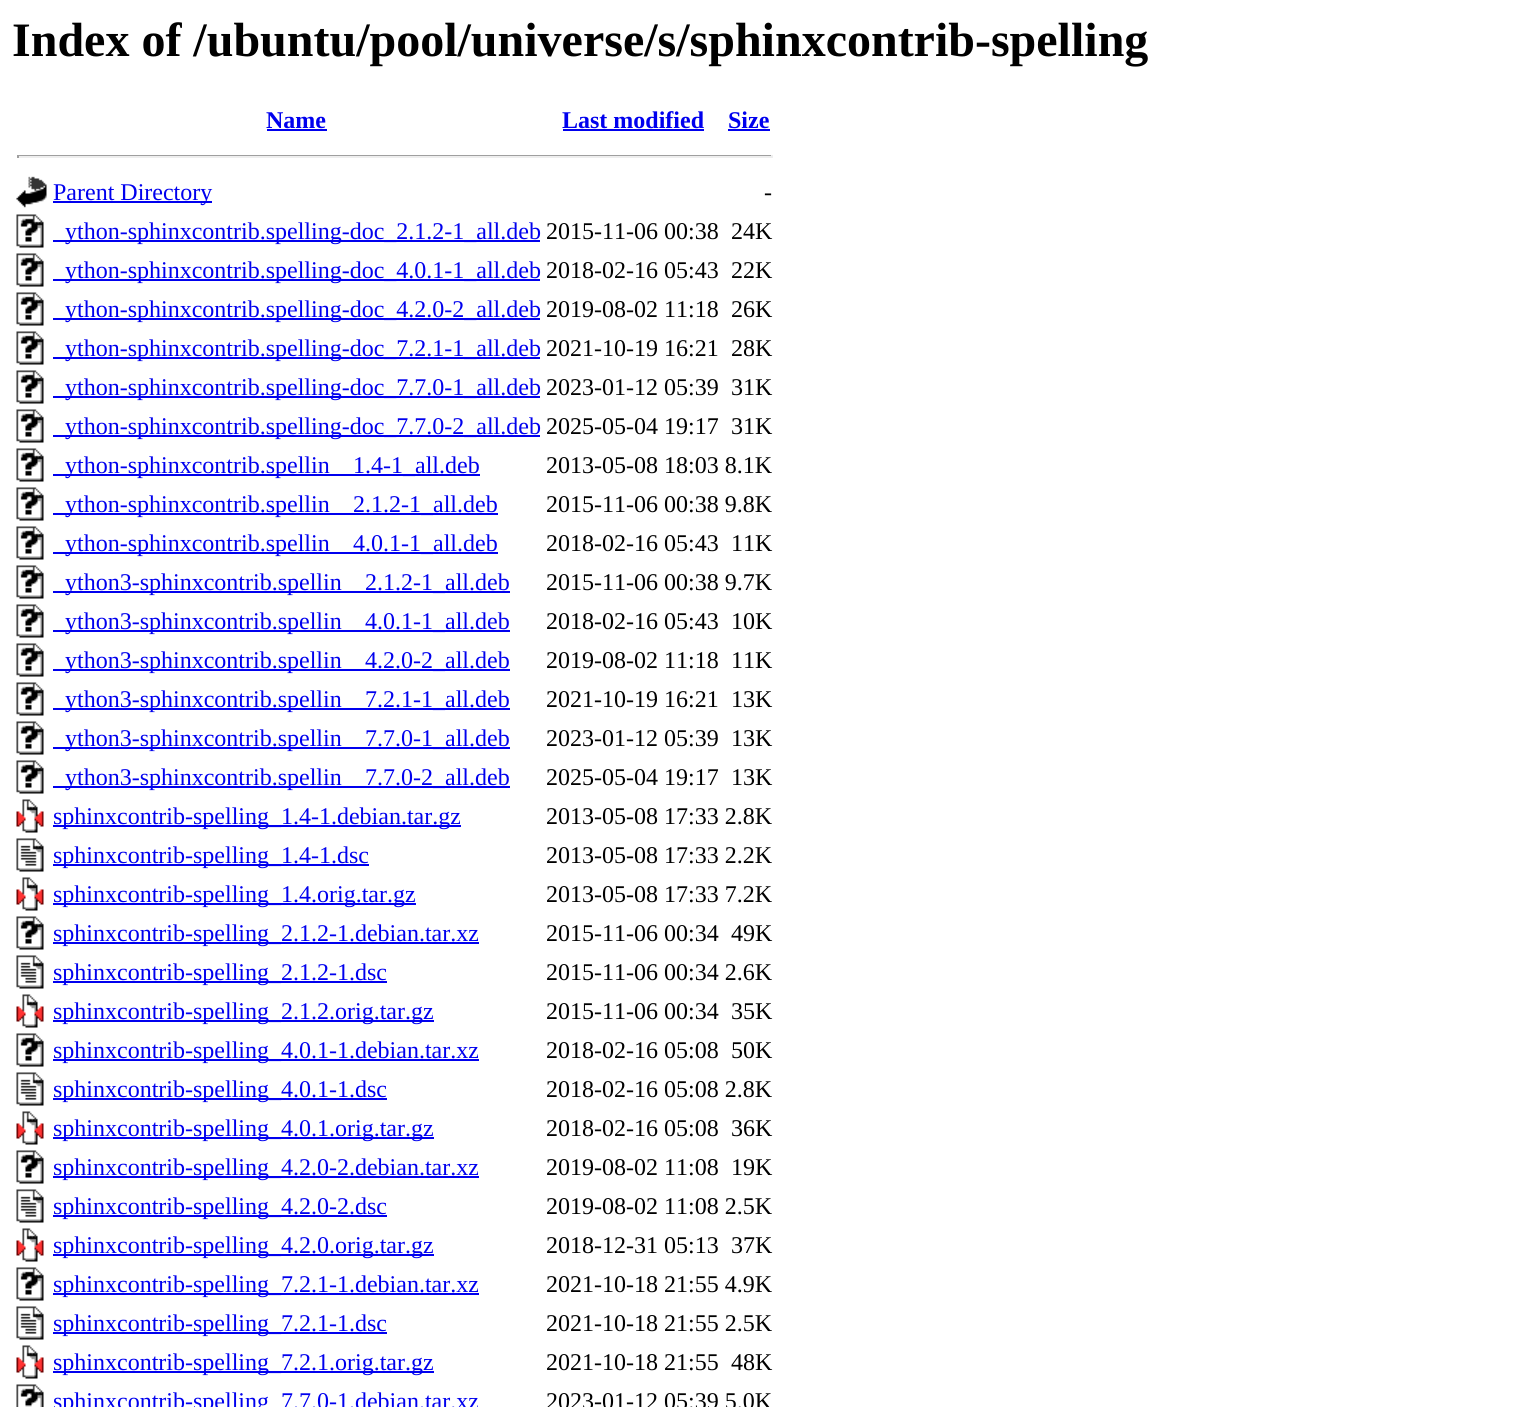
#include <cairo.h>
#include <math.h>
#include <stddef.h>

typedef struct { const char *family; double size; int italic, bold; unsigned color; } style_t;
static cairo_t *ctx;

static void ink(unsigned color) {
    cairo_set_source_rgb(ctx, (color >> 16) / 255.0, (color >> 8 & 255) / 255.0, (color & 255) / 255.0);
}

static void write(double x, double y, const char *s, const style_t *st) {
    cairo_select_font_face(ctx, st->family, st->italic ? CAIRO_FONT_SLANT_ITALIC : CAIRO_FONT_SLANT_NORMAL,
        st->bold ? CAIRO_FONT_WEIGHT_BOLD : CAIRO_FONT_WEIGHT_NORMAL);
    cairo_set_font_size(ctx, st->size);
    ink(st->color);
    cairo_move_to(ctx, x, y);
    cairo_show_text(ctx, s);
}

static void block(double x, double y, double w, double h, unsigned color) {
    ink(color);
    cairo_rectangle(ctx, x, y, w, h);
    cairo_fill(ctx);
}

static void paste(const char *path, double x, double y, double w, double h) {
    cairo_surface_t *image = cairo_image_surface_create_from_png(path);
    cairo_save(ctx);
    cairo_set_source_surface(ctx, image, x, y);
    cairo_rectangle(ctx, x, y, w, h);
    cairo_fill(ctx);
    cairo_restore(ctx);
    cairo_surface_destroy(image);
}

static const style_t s1 = {"Liberation Serif", 48, 0, 1, 0x000000};
static const style_t s2 = {"Liberation Serif", 24, 0, 1, 0x0000ee};
static const style_t s3 = {"Liberation Serif", 24, 0, 0, 0x0000ee};
static const style_t s4 = {"Liberation Serif", 24, 0, 0, 0x000000};

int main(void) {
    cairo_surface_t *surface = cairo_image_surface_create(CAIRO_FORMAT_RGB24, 1535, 1407);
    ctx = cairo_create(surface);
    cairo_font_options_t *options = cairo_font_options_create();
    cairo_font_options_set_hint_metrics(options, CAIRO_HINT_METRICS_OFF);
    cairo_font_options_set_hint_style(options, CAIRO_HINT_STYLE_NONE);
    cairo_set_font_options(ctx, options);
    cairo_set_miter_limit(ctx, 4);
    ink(0xffffff);
    cairo_paint(ctx);
    write(12, 56, "Index of /ubuntu/pool/universe/s/sphinxcontrib-spelling", &s1);
    write(266, 128, "Name", &s2);
    block(267, 129, 60, 2, 0x0000ee);
    write(562, 128, "Last modified", &s2);
    block(563, 129, 141, 2, 0x0000ee);
    write(728, 128, "Size", &s2);
    block(728, 129, 42, 2, 0x0000ee);
    block(17, 155, 756, 1, 0x9f9f9f);
    block(771, 155, 2, 3, 0xeeeeee);
    block(17, 156, 756, 2, 0xeeeeee);
    block(17, 155, 2, 3, 0x9f9f9f);
    paste("pic1.png", 16, 176, 31, 32);
    block(53, 201, 159, 2, 0x0000ee);
    write(53, 200, "Parent Directory", &s3);
    write(764, 200, "-", &s4);
    paste("pic2.png", 16, 214, 28, 34);
    block(53, 240, 487, 2, 0x0000ee);
    write(65, 239, "ython-sphinxcontrib.spelling-doc_2.1.2-1_all.deb", &s3);
    write(546, 239, "2015-11-06 00:38", &s4);
    write(731, 239, "24K", &s4);
    paste("pic2.png", 16, 253, 28, 34);
    block(53, 279, 487, 2, 0x0000ee);
    write(65, 278, "ython-sphinxcontrib.spelling-doc_4.0.1-1_all.deb", &s3);
    write(546, 278, "2018-02-16 05:43", &s4);
    write(731, 278, "22K", &s4);
    paste("pic2.png", 16, 292, 28, 34);
    block(53, 318, 487, 2, 0x0000ee);
    write(65, 317, "ython-sphinxcontrib.spelling-doc_4.2.0-2_all.deb", &s3);
    write(546, 317, "2019-08-02 11:18", &s4);
    write(731, 317, "26K", &s4);
    paste("pic2.png", 16, 331, 28, 34);
    block(53, 357, 487, 2, 0x0000ee);
    write(65, 356, "ython-sphinxcontrib.spelling-doc_7.2.1-1_all.deb", &s3);
    write(546, 356, "2021-10-19 16:21", &s4);
    write(731, 356, "28K", &s4);
    paste("pic2.png", 16, 370, 28, 34);
    block(53, 396, 487, 2, 0x0000ee);
    write(65, 395, "ython-sphinxcontrib.spelling-doc_7.7.0-1_all.deb", &s3);
    write(546, 395, "2023-01-12 05:39", &s4);
    write(731, 395, "31K", &s4);
    paste("pic2.png", 16, 409, 28, 34);
    block(53, 435, 487, 2, 0x0000ee);
    write(65, 434, "ython-sphinxcontrib.spelling-doc_7.7.0-2_all.deb", &s3);
    write(546, 434, "2025-05-04 19:17", &s4);
    write(731, 434, "31K", &s4);
    paste("pic2.png", 16, 448, 28, 34);
    block(53, 474, 427, 2, 0x0000ee);
    write(65, 473, "ython-sphinxcontrib.spellin", &s3);
    write(353, 473, "1.4-1_all.deb", &s3);
    write(546, 473, "2013-05-08 18:03 8.1K", &s4);
    paste("pic2.png", 16, 487, 28, 34);
    block(53, 513, 445, 2, 0x0000ee);
    write(65, 512, "ython-sphinxcontrib.spellin", &s3);
    write(353, 512, "2.1.2-1_all.deb", &s3);
    write(546, 512, "2015-11-06 00:38 9.8K", &s4);
    paste("pic2.png", 16, 526, 28, 34);
    block(53, 552, 445, 2, 0x0000ee);
    write(65, 551, "ython-sphinxcontrib.spellin", &s3);
    write(353, 551, "4.0.1-1_all.deb", &s3);
    write(546, 551, "2018-02-16 05:43", &s4);
    write(731, 551, "11K", &s4);
    paste("pic2.png", 16, 565, 28, 34);
    block(53, 591, 457, 2, 0x0000ee);
    write(65, 590, "ython3-sphinxcontrib.spellin", &s3);
    write(365, 590, "2.1.2-1_all.deb", &s3);
    write(546, 590, "2015-11-06 00:38 9.7K", &s4);
    paste("pic2.png", 16, 604, 28, 34);
    block(53, 630, 457, 2, 0x0000ee);
    write(65, 629, "ython3-sphinxcontrib.spellin", &s3);
    write(365, 629, "4.0.1-1_all.deb", &s3);
    write(546, 629, "2018-02-16 05:43", &s4);
    write(731, 629, "10K", &s4);
    paste("pic2.png", 16, 643, 28, 34);
    block(53, 669, 457, 2, 0x0000ee);
    write(65, 668, "ython3-sphinxcontrib.spellin", &s3);
    write(365, 668, "4.2.0-2_all.deb", &s3);
    write(546, 668, "2019-08-02 11:18", &s4);
    write(731, 668, "11K", &s4);
    paste("pic2.png", 16, 682, 28, 34);
    block(53, 708, 457, 2, 0x0000ee);
    write(65, 707, "ython3-sphinxcontrib.spellin", &s3);
    write(365, 707, "7.2.1-1_all.deb", &s3);
    write(546, 707, "2021-10-19 16:21", &s4);
    write(731, 707, "13K", &s4);
    paste("pic2.png", 16, 721, 28, 34);
    block(53, 747, 457, 2, 0x0000ee);
    write(65, 746, "ython3-sphinxcontrib.spellin", &s3);
    write(365, 746, "7.7.0-1_all.deb", &s3);
    write(546, 746, "2023-01-12 05:39", &s4);
    write(731, 746, "13K", &s4);
    paste("pic2.png", 16, 760, 28, 34);
    block(53, 786, 457, 2, 0x0000ee);
    write(65, 785, "ython3-sphinxcontrib.spellin", &s3);
    write(365, 785, "7.7.0-2_all.deb", &s3);
    write(546, 785, "2025-05-04 19:17", &s4);
    write(731, 785, "13K", &s4);
    paste("pic3.png", 16, 799, 28, 34);
    block(53, 825, 408, 2, 0x0000ee);
    write(53, 824, "sphinxcontrib-spelling_1.4-1.debian.tar.gz", &s3);
    write(546, 824, "2013-05-08 17:33 2.8K", &s4);
    paste("pic4.png", 16, 838, 28, 34);
    block(53, 864, 316, 2, 0x0000ee);
    write(53, 863, "sphinxcontrib-spelling_1.4-1.dsc", &s3);
    write(546, 863, "2013-05-08 17:33 2.2K", &s4);
    paste("pic3.png", 16, 877, 28, 34);
    block(53, 903, 363, 2, 0x0000ee);
    write(53, 902, "sphinxcontrib-spelling_1.4.orig.tar.gz", &s3);
    write(546, 902, "2013-05-08 17:33 7.2K", &s4);
    paste("pic2.png", 16, 916, 28, 34);
    block(53, 942, 426, 2, 0x0000ee);
    write(53, 941, "sphinxcontrib-spelling_2.1.2-1.debian.tar.xz", &s3);
    write(546, 941, "2015-11-06 00:34", &s4);
    write(731, 941, "49K", &s4);
    paste("pic4.png", 16, 955, 28, 34);
    block(53, 981, 334, 2, 0x0000ee);
    write(53, 980, "sphinxcontrib-spelling_2.1.2-1.dsc", &s3);
    write(546, 980, "2015-11-06 00:34 2.6K", &s4);
    paste("pic3.png", 16, 994, 28, 34);
    block(53, 1020, 381, 2, 0x0000ee);
    write(53, 1019, "sphinxcontrib-spelling_2.1.2.orig.tar.gz", &s3);
    write(546, 1019, "2015-11-06 00:34", &s4);
    write(731, 1019, "35K", &s4);
    paste("pic2.png", 16, 1033, 28, 34);
    block(53, 1059, 426, 2, 0x0000ee);
    write(53, 1058, "sphinxcontrib-spelling_4.0.1-1.debian.tar.xz", &s3);
    write(546, 1058, "2018-02-16 05:08", &s4);
    write(731, 1058, "50K", &s4);
    paste("pic4.png", 16, 1072, 28, 34);
    block(53, 1098, 334, 2, 0x0000ee);
    write(53, 1097, "sphinxcontrib-spelling_4.0.1-1.dsc", &s3);
    write(546, 1097, "2018-02-16 05:08 2.8K", &s4);
    paste("pic3.png", 16, 1111, 28, 34);
    block(53, 1137, 381, 2, 0x0000ee);
    write(53, 1136, "sphinxcontrib-spelling_4.0.1.orig.tar.gz", &s3);
    write(546, 1136, "2018-02-16 05:08", &s4);
    write(731, 1136, "36K", &s4);
    paste("pic2.png", 16, 1150, 28, 34);
    block(53, 1176, 426, 2, 0x0000ee);
    write(53, 1175, "sphinxcontrib-spelling_4.2.0-2.debian.tar.xz", &s3);
    write(546, 1175, "2019-08-02 11:08", &s4);
    write(731, 1175, "19K", &s4);
    paste("pic4.png", 16, 1189, 28, 34);
    block(53, 1215, 334, 2, 0x0000ee);
    write(53, 1214, "sphinxcontrib-spelling_4.2.0-2.dsc", &s3);
    write(546, 1214, "2019-08-02 11:08 2.5K", &s4);
    paste("pic3.png", 16, 1228, 28, 34);
    block(53, 1254, 381, 2, 0x0000ee);
    write(53, 1253, "sphinxcontrib-spelling_4.2.0.orig.tar.gz", &s3);
    write(546, 1253, "2018-12-31 05:13", &s4);
    write(731, 1253, "37K", &s4);
    paste("pic2.png", 16, 1267, 28, 34);
    block(53, 1293, 426, 2, 0x0000ee);
    write(53, 1292, "sphinxcontrib-spelling_7.2.1-1.debian.tar.xz", &s3);
    write(546, 1292, "2021-10-18 21:55 4.9K", &s4);
    paste("pic4.png", 16, 1306, 28, 34);
    block(53, 1332, 334, 2, 0x0000ee);
    write(53, 1331, "sphinxcontrib-spelling_7.2.1-1.dsc", &s3);
    write(546, 1331, "2021-10-18 21:55 2.5K", &s4);
    paste("pic3.png", 16, 1345, 28, 34);
    block(53, 1371, 381, 2, 0x0000ee);
    write(53, 1370, "sphinxcontrib-spelling_7.2.1.orig.tar.gz", &s3);
    write(546, 1370, "2021-10-18 21:55", &s4);
    write(731, 1370, "48K", &s4);
    paste("pic5.png", 16, 1384, 28, 23);
    write(53, 1409, "sphinxcontrib-spelling_7.7.0-1.debian.tar.xz", &s3);
    write(546, 1409, "2023-01-12 05:39 5.0K", &s4);
    cairo_surface_write_to_png(surface, "screenshot.png");
    cairo_font_options_destroy(options);
    cairo_destroy(ctx);
    cairo_surface_destroy(surface);
    return 0;
}
